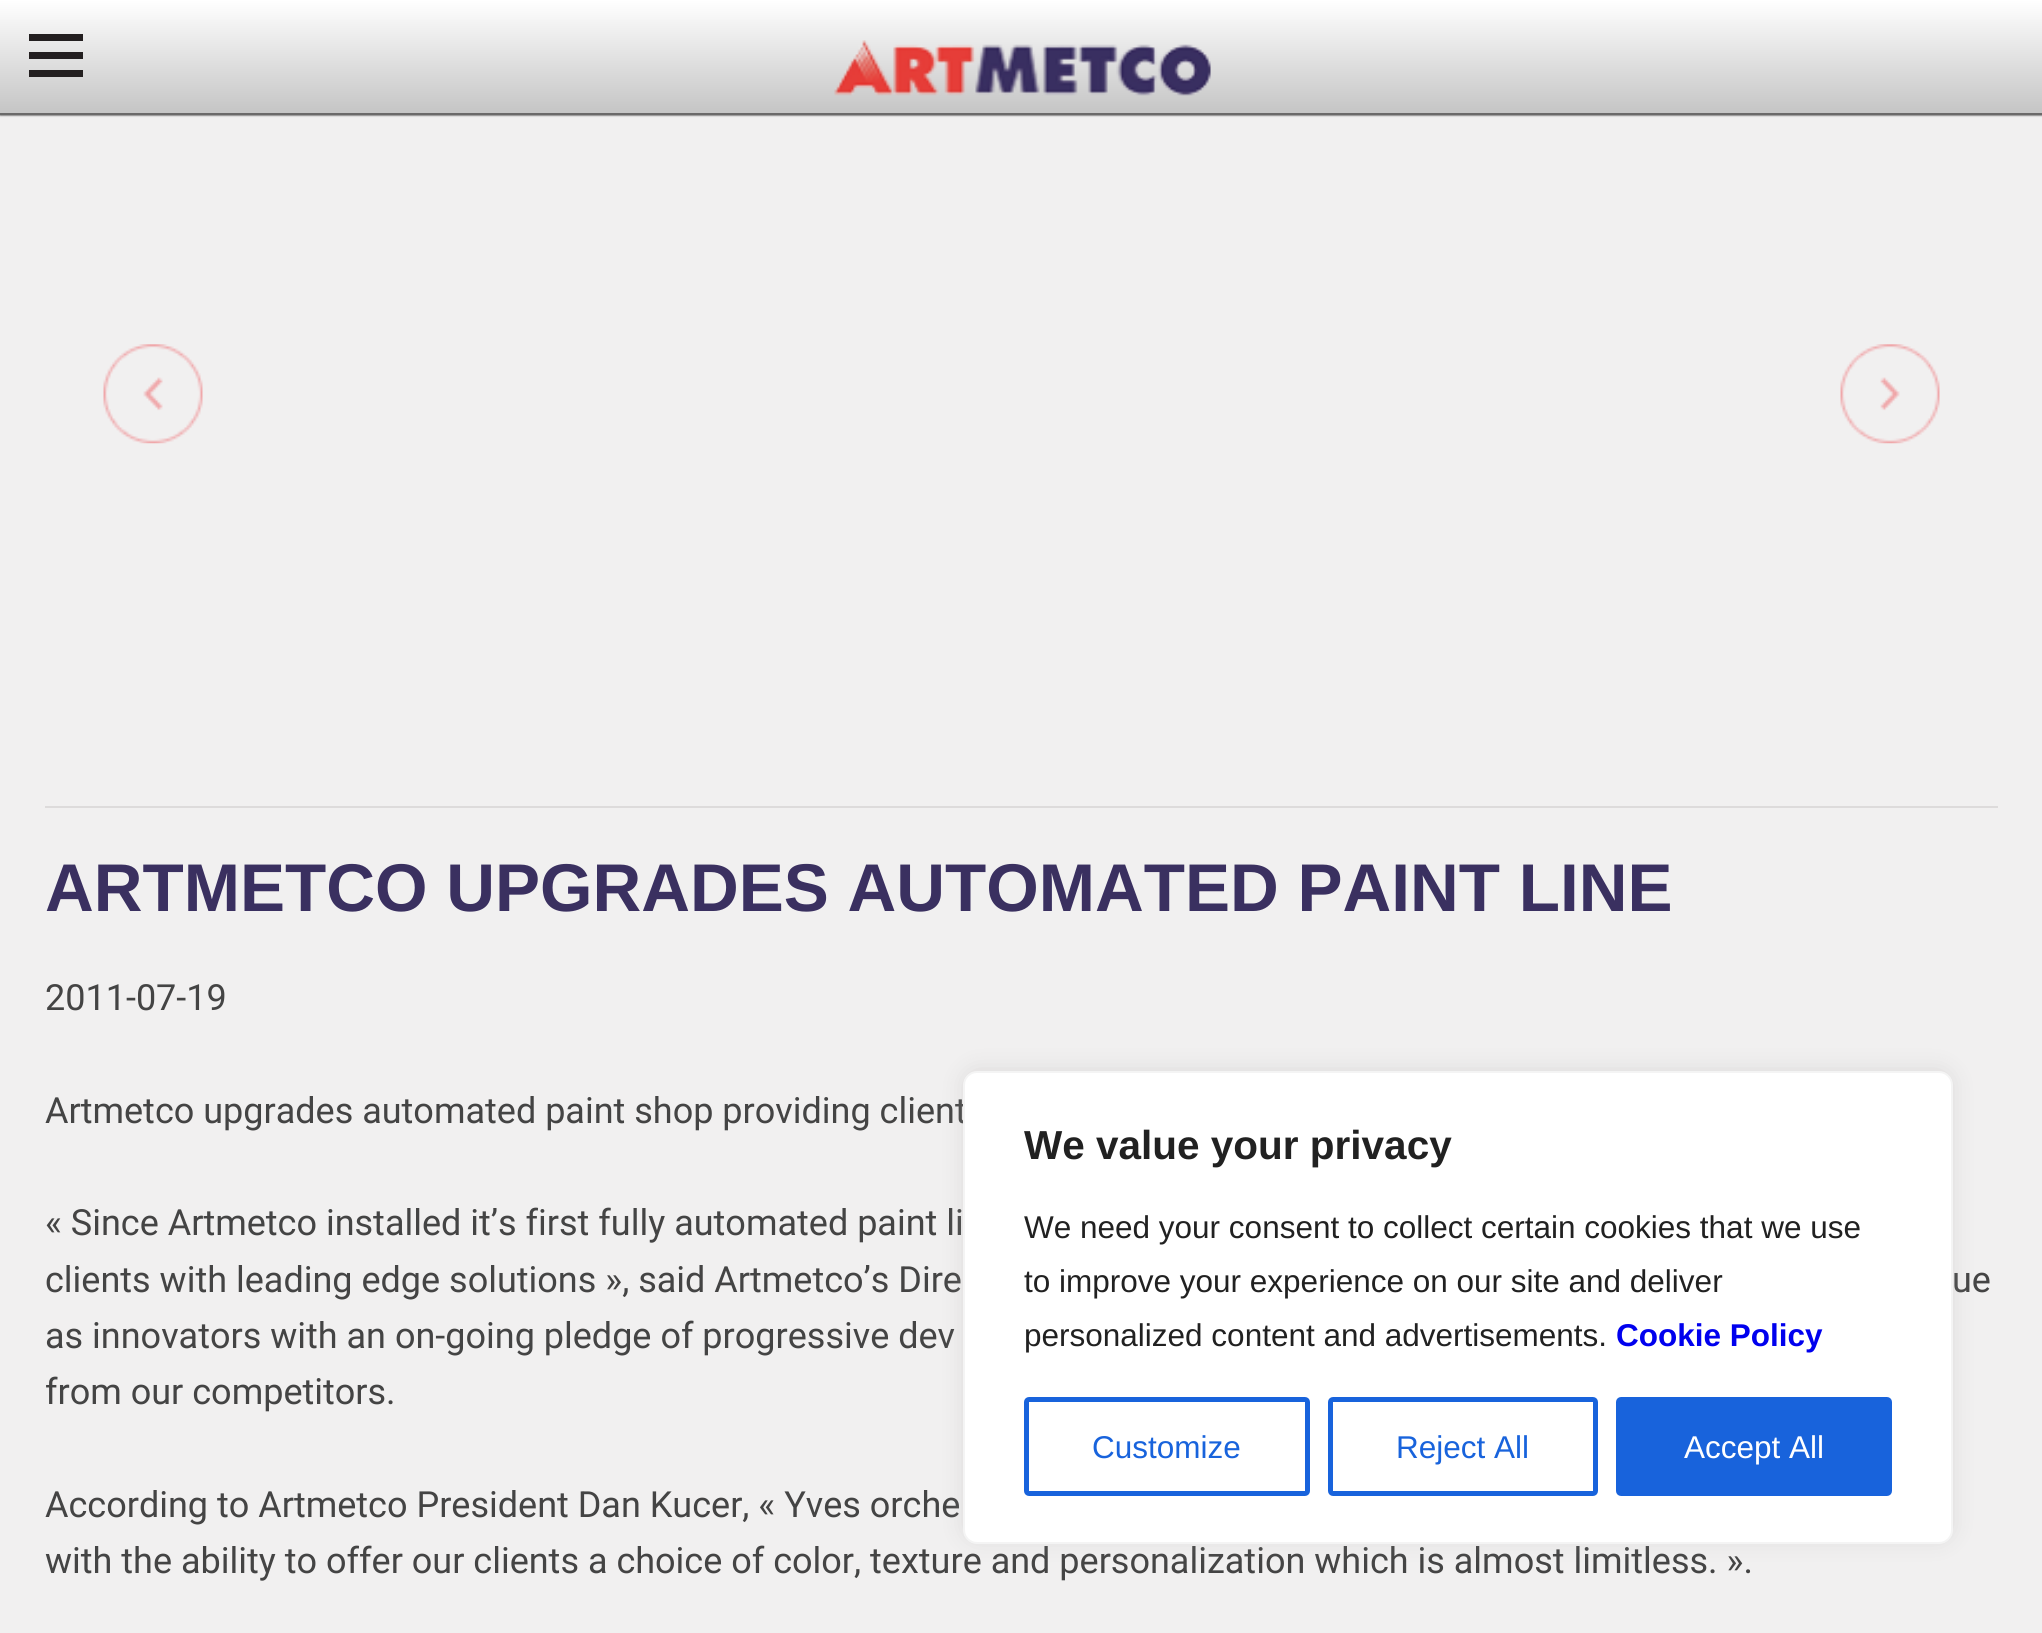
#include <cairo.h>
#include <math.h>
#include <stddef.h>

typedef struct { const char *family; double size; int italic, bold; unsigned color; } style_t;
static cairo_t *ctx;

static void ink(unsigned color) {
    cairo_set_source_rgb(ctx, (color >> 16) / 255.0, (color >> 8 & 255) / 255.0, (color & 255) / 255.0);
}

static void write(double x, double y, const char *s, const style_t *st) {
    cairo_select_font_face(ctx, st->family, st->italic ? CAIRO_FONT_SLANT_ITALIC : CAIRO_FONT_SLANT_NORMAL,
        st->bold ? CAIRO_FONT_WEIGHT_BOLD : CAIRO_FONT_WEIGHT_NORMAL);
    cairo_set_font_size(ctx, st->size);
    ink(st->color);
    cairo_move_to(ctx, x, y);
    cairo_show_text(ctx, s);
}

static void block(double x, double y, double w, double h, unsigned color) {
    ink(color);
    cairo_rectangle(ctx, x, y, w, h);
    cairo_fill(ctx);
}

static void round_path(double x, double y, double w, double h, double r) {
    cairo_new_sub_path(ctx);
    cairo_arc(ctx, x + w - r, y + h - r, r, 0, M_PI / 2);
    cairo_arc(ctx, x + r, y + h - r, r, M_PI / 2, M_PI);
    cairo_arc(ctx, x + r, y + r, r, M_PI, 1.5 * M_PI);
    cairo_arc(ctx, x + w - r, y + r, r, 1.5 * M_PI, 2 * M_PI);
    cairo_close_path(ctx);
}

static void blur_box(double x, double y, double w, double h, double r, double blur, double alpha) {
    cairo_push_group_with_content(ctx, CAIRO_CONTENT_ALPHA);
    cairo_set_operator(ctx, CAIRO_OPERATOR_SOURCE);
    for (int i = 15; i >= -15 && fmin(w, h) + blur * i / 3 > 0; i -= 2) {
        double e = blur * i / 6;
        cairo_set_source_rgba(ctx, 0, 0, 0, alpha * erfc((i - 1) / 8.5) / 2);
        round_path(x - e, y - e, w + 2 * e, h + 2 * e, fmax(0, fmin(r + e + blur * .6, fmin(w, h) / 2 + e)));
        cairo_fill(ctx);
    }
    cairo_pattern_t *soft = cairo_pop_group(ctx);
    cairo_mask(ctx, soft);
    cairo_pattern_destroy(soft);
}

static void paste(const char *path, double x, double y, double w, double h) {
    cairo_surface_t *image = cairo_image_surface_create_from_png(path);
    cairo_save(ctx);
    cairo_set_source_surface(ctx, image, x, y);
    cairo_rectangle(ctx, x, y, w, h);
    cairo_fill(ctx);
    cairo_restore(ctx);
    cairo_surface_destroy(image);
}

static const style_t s1 = {"Liberation Sans", 67.5, 0, 1, 0x3a3060};
static const style_t s2 = {"Roboto", 36, 0, 0, 0x444444};
static const style_t s3 = {"Liberation Sans", 40.5, 0, 1, 0x212121};
static const style_t s4 = {"Liberation Sans", 31.5, 0, 0, 0x212121};
static const style_t s5 = {"Liberation Sans", 31.5, 0, 1, 0x0000ee};
static const style_t s6 = {"Liberation Sans", 31.5, 0, 0, 0x1863dc};
static const style_t s7 = {"Liberation Sans", 31.5, 0, 0, 0xffffff};

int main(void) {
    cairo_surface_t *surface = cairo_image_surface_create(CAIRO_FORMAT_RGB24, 2042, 1633);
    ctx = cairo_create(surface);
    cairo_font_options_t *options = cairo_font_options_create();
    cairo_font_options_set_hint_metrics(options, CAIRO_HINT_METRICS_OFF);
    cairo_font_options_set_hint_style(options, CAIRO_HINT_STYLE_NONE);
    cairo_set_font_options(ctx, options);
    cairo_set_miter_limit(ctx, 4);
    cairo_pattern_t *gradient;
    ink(0xf1f0f0);
    cairo_paint(ctx);
    ink(0x000000);
    blur_box(0, 0, 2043, 115, 0, 1, 1);
    gradient = cairo_pattern_create_linear(1022, 0, 1022, 113);
    cairo_pattern_add_color_stop_rgba(gradient, 0, 1, 1, 1, 1);
    cairo_pattern_add_color_stop_rgba(gradient, 1, 0.773, 0.773, 0.773, 1);
    cairo_set_source(ctx, gradient);
    cairo_pattern_destroy(gradient);
    cairo_rectangle(ctx, 0, 0, 2042, 113);
    cairo_fill(ctx);
    block(0, 113, 2042, 2, 0x6a6969);
    block(29, 52, 54, 7, 0x231f20);
    block(29, 34, 54, 7, 0x231f20);
    block(29, 70, 54, 7, 0x231f20);
    paste("pic1.png", 834, 40, 377, 56);
    paste("pic2.png", 103, 344, 100, 100);
    paste("pic3.png", 1840, 344, 100, 100);
    block(45, 806, 1953, 2, 0xdddbdb);
    write(45, 911, "ARTMETCO UPGRADES AUTOMATED PAINT LINE", &s1);
    write(45, 1010, "2011-07-19", &s2);
    write(45, 1123, "Artmetco upgrades automated paint shop providing client", &s2);
    write(45, 1235, "« Since Artmetco installed it’s first fully automated paint li", &s2);
    write(45, 1292, "clients with leading edge solutions », said Artmetco’s Dire", &s2);
    write(1952, 1292, "ue", &s2);
    write(45, 1348, "as innovators with an on-going pledge of progressive dev", &s2);
    write(45, 1404, "from our competitors.", &s2);
    write(45, 1517, "According to Artmetco President Dan Kucer, « Yves orche", &s2);
    write(45, 1573, "with the ability to offer our clients a choice of color, texture and personalization which is almost limitless. ».", &s2);
    ink(0xacabab);
    blur_box(963, 1069, 990, 472, 14, 11, 0.3);
    ink(0xffffff);
    round_path(964, 1072, 988, 471, 13);
    cairo_fill_preserve(ctx);
    ink(0xf4f4f4);
    cairo_stroke(ctx);
    write(1024, 1159, "We value your privacy", &s3);
    write(1024, 1238, "We need your consent to collect certain cookies that we use", &s4);
    write(1024, 1292, "to improve your experience on our site and deliver", &s4);
    write(1024, 1346, "personalized content and advertisements.", &s4);
    write(1616, 1346, "Cookie Policy", &s5);
    round_path(1026.5, 1399.5, 281, 94, 2.5);
    ink(0x1863dc);
    cairo_set_line_width(ctx, 5);
    cairo_stroke(ctx);
    write(1092, 1458, "Customize", &s6);
    round_path(1330.5, 1399.5, 265, 94, 2.5);
    cairo_stroke(ctx);
    write(1396, 1458, "Reject All", &s6);
    round_path(1618.5, 1399.5, 271, 94, 2.5);
    cairo_fill_preserve(ctx);
    cairo_stroke(ctx);
    write(1684, 1458, "Accept All", &s7);
    cairo_surface_write_to_png(surface, "screenshot.png");
    cairo_font_options_destroy(options);
    cairo_destroy(ctx);
    cairo_surface_destroy(surface);
    return 0;
}
